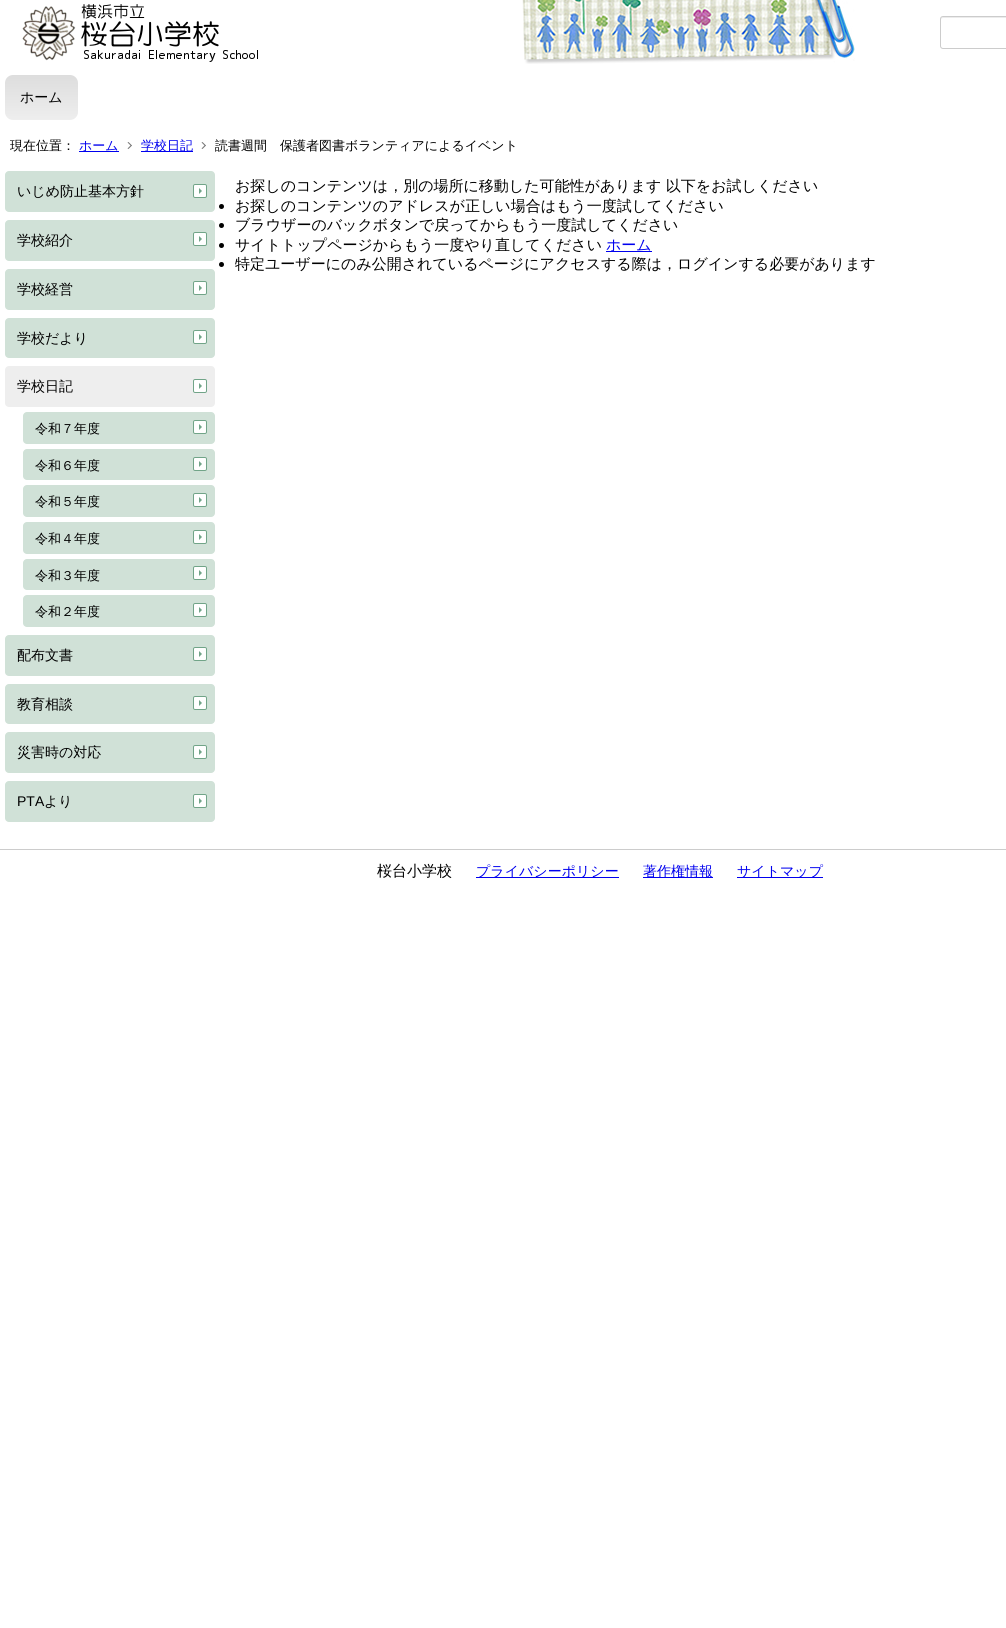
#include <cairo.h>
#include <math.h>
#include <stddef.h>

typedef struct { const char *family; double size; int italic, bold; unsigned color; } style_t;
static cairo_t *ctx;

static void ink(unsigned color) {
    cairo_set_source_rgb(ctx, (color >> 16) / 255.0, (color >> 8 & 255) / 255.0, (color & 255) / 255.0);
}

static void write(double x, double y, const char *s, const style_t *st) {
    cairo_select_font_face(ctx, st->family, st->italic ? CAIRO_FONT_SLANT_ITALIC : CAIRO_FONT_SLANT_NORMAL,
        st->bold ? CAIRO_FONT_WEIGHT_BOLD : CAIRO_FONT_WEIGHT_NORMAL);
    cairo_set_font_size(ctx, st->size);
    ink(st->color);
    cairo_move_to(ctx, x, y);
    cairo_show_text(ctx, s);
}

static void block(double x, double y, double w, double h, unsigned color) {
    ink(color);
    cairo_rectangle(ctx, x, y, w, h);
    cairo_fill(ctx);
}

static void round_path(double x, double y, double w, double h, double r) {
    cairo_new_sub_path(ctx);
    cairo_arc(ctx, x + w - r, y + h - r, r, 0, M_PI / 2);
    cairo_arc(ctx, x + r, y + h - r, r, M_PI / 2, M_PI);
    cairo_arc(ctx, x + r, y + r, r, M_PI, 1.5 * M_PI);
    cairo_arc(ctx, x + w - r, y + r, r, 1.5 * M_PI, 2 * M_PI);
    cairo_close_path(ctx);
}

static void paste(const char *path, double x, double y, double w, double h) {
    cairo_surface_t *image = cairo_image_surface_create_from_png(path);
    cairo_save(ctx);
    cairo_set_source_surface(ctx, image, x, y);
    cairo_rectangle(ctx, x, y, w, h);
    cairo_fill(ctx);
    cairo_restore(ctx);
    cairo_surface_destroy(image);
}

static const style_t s1 = {"WenQuanYi Zen Hei Medium", 14, 0, 0, 0x000000};
static const style_t s2 = {"WenQuanYi Zen Hei Medium", 13, 0, 0, 0x000000};
static const style_t s3 = {"WenQuanYi Zen Hei Medium", 13, 0, 0, 0x0000ee};
static const style_t s4 = {"Liberation Sans", 14, 0, 0, 0x000000};
static const style_t s5 = {"WenQuanYi Zen Hei Medium", 15, 0, 0, 0x000000};
static const style_t s6 = {"WenQuanYi Zen Hei Medium", 15, 0, 0, 0x0000ee};
static const style_t s7 = {"WenQuanYi Zen Hei Medium", 14, 0, 0, 0x0000ee};

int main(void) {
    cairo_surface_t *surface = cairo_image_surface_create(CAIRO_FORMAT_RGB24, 1006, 1628);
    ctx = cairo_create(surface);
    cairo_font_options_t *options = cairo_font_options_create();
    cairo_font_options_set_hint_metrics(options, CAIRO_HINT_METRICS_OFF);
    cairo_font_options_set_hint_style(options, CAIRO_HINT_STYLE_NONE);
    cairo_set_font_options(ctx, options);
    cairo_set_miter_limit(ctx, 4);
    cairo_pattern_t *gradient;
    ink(0xffffff);
    cairo_paint(ctx);
    paste("pic1.png", 522, 0, 333, 64);
    paste("pic2.png", 22, 4, 236, 58);
    ink(0xececec);
    cairo_new_path(ctx);
    cairo_move_to(ctx, 943, 18);
    cairo_line_to(ctx, 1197, 18);
    cairo_curve_to(ctx, 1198, 18, 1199, 19, 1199, 20);
    cairo_line_to(ctx, 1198, 17);
    cairo_line_to(ctx, 943, 17);
    cairo_curve_to(ctx, 941, 17, 941, 19, 941, 20);
    cairo_curve_to(ctx, 941, 19, 942, 18, 943, 18);
    cairo_close_path(ctx);
    cairo_fill(ctx);
    round_path(940.5, 16.5, 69, 32, 2.5);
    ink(0xcccccc);
    cairo_set_line_width(ctx, 1);
    cairo_stroke(ctx);
    gradient = cairo_pattern_create_linear(42, 75, 42, 120);
    cairo_pattern_add_color_stop_rgba(gradient, 0, 0.867, 0.867, 0.867, 1);
    cairo_pattern_add_color_stop_rgba(gradient, 1, 0.933, 0.933, 0.933, 1);
    cairo_set_source(ctx, gradient);
    cairo_pattern_destroy(gradient);
    round_path(5, 75, 73, 45, 8);
    cairo_fill(ctx);
    write(20, 102, "ホーム", &s1);
    write(10, 150, "現在位置：", &s2);
    block(79, 151, 40, 1, 0x0000ee);
    write(79, 150, "ホーム", &s3);
    ink(0x777777);
    cairo_new_path(ctx);
    cairo_move_to(ctx, 128.5, 142);
    cairo_line_to(ctx, 132, 145.5);
    cairo_line_to(ctx, 131, 146);
    cairo_line_to(ctx, 127.5, 142.5);
    cairo_close_path(ctx);
    cairo_fill(ctx);
    cairo_new_path(ctx);
    cairo_move_to(ctx, 131, 145);
    cairo_line_to(ctx, 132, 145.5);
    cairo_line_to(ctx, 128.5, 149);
    cairo_line_to(ctx, 127.5, 148.5);
    cairo_close_path(ctx);
    cairo_fill(ctx);
    block(141, 151, 52, 1, 0x0000ee);
    write(141, 150, "学校日記", &s3);
    ink(0x777777);
    cairo_new_path(ctx);
    cairo_move_to(ctx, 202.5, 142);
    cairo_line_to(ctx, 206, 145.5);
    cairo_line_to(ctx, 205, 146);
    cairo_line_to(ctx, 201.5, 142.5);
    cairo_close_path(ctx);
    cairo_fill(ctx);
    cairo_new_path(ctx);
    cairo_move_to(ctx, 205, 145);
    cairo_line_to(ctx, 206, 145.5);
    cairo_line_to(ctx, 202.5, 149);
    cairo_line_to(ctx, 201.5, 148.5);
    cairo_close_path(ctx);
    cairo_fill(ctx);
    write(215, 150, "読書週間　保護者図書ボランティアによるイベント", &s2);
    ink(0xd0e1d7);
    round_path(5, 171, 210, 41, 4);
    cairo_fill(ctx);
    write(17, 196, "いじめ防止基本方針", &s1);
    ink(0xffffff);
    round_path(193.5, 184.5, 13, 13, 1.5);
    cairo_fill_preserve(ctx);
    ink(0x71a488);
    cairo_stroke(ctx);
    cairo_new_path(ctx);
    cairo_move_to(ctx, 199, 194);
    cairo_line_to(ctx, 199, 188);
    cairo_line_to(ctx, 202, 191);
    cairo_close_path(ctx);
    cairo_fill(ctx);
    ink(0xd0e1d7);
    round_path(5, 220, 210, 41, 4);
    cairo_fill(ctx);
    write(17, 245, "学校紹介", &s1);
    ink(0xffffff);
    round_path(193.5, 232.5, 13, 13, 1.5);
    cairo_fill_preserve(ctx);
    ink(0x71a488);
    cairo_stroke(ctx);
    cairo_new_path(ctx);
    cairo_move_to(ctx, 199, 242);
    cairo_line_to(ctx, 199, 236);
    cairo_line_to(ctx, 202, 239);
    cairo_close_path(ctx);
    cairo_fill(ctx);
    ink(0xd0e1d7);
    round_path(5, 269, 210, 41, 4);
    cairo_fill(ctx);
    write(17, 294, "学校経営", &s1);
    ink(0xffffff);
    round_path(193.5, 281.5, 13, 13, 1.5);
    cairo_fill_preserve(ctx);
    ink(0x71a488);
    cairo_stroke(ctx);
    cairo_new_path(ctx);
    cairo_move_to(ctx, 199, 291);
    cairo_line_to(ctx, 199, 285);
    cairo_line_to(ctx, 202, 288);
    cairo_close_path(ctx);
    cairo_fill(ctx);
    ink(0xd0e1d7);
    round_path(5, 318, 210, 40, 4);
    cairo_fill(ctx);
    write(17, 343, "学校だより", &s1);
    ink(0xffffff);
    round_path(193.5, 330.5, 13, 13, 1.5);
    cairo_fill_preserve(ctx);
    ink(0x71a488);
    cairo_stroke(ctx);
    cairo_new_path(ctx);
    cairo_move_to(ctx, 199, 340);
    cairo_line_to(ctx, 199, 334);
    cairo_line_to(ctx, 202, 337);
    cairo_close_path(ctx);
    cairo_fill(ctx);
    ink(0xeeeeee);
    round_path(5, 366, 210, 41, 4);
    cairo_fill(ctx);
    write(17, 391, "学校日記", &s1);
    ink(0xffffff);
    round_path(193.5, 379.5, 13, 13, 1.5);
    cairo_fill_preserve(ctx);
    ink(0x71a488);
    cairo_stroke(ctx);
    cairo_new_path(ctx);
    cairo_move_to(ctx, 199, 389);
    cairo_line_to(ctx, 199, 383);
    cairo_line_to(ctx, 202, 386);
    cairo_close_path(ctx);
    cairo_fill(ctx);
    ink(0xd0e1d7);
    round_path(23, 412, 192, 32, 4);
    cairo_fill(ctx);
    write(35, 433, "令和７年度", &s2);
    ink(0xffffff);
    round_path(193.5, 420.5, 13, 13, 1.5);
    cairo_fill_preserve(ctx);
    ink(0x71a488);
    cairo_stroke(ctx);
    cairo_new_path(ctx);
    cairo_move_to(ctx, 199, 430);
    cairo_line_to(ctx, 199, 424);
    cairo_line_to(ctx, 202, 427);
    cairo_close_path(ctx);
    cairo_fill(ctx);
    ink(0xd0e1d7);
    round_path(23, 449, 192, 31, 4);
    cairo_fill(ctx);
    write(35, 470, "令和６年度", &s2);
    ink(0xffffff);
    round_path(193.5, 457.5, 13, 13, 1.5);
    cairo_fill_preserve(ctx);
    ink(0x71a488);
    cairo_stroke(ctx);
    cairo_new_path(ctx);
    cairo_move_to(ctx, 199, 467);
    cairo_line_to(ctx, 199, 461);
    cairo_line_to(ctx, 202, 464);
    cairo_close_path(ctx);
    cairo_fill(ctx);
    ink(0xd0e1d7);
    round_path(23, 485, 192, 32, 4);
    cairo_fill(ctx);
    write(35, 506, "令和５年度", &s2);
    ink(0xffffff);
    round_path(193.5, 493.5, 13, 13, 1.5);
    cairo_fill_preserve(ctx);
    ink(0x71a488);
    cairo_stroke(ctx);
    cairo_new_path(ctx);
    cairo_move_to(ctx, 199, 503);
    cairo_line_to(ctx, 199, 497);
    cairo_line_to(ctx, 202, 500);
    cairo_close_path(ctx);
    cairo_fill(ctx);
    ink(0xd0e1d7);
    round_path(23, 522, 192, 32, 4);
    cairo_fill(ctx);
    write(35, 543, "令和４年度", &s2);
    ink(0xffffff);
    round_path(193.5, 530.5, 13, 13, 1.5);
    cairo_fill_preserve(ctx);
    ink(0x71a488);
    cairo_stroke(ctx);
    cairo_new_path(ctx);
    cairo_move_to(ctx, 199, 540);
    cairo_line_to(ctx, 199, 534);
    cairo_line_to(ctx, 202, 537);
    cairo_close_path(ctx);
    cairo_fill(ctx);
    ink(0xd0e1d7);
    round_path(23, 559, 192, 31, 4);
    cairo_fill(ctx);
    write(35, 580, "令和３年度", &s2);
    ink(0xffffff);
    round_path(193.5, 566.5, 13, 13, 1.5);
    cairo_fill_preserve(ctx);
    ink(0x71a488);
    cairo_stroke(ctx);
    cairo_new_path(ctx);
    cairo_move_to(ctx, 199, 576);
    cairo_line_to(ctx, 199, 570);
    cairo_line_to(ctx, 202, 573);
    cairo_close_path(ctx);
    cairo_fill(ctx);
    ink(0xd0e1d7);
    round_path(23, 595, 192, 32, 4);
    cairo_fill(ctx);
    write(35, 616, "令和２年度", &s2);
    ink(0xffffff);
    round_path(193.5, 603.5, 13, 13, 1.5);
    cairo_fill_preserve(ctx);
    ink(0x71a488);
    cairo_stroke(ctx);
    cairo_new_path(ctx);
    cairo_move_to(ctx, 199, 613);
    cairo_line_to(ctx, 199, 607);
    cairo_line_to(ctx, 202, 610);
    cairo_close_path(ctx);
    cairo_fill(ctx);
    ink(0xd0e1d7);
    round_path(5, 635, 210, 41, 4);
    cairo_fill(ctx);
    write(17, 660, "配布文書", &s1);
    ink(0xffffff);
    round_path(193.5, 647.5, 13, 13, 1.5);
    cairo_fill_preserve(ctx);
    ink(0x71a488);
    cairo_stroke(ctx);
    cairo_new_path(ctx);
    cairo_move_to(ctx, 199, 657);
    cairo_line_to(ctx, 199, 651);
    cairo_line_to(ctx, 202, 654);
    cairo_close_path(ctx);
    cairo_fill(ctx);
    ink(0xd0e1d7);
    round_path(5, 684, 210, 40, 4);
    cairo_fill(ctx);
    write(17, 709, "教育相談", &s1);
    ink(0xffffff);
    round_path(193.5, 696.5, 13, 13, 1.5);
    cairo_fill_preserve(ctx);
    ink(0x71a488);
    cairo_stroke(ctx);
    cairo_new_path(ctx);
    cairo_move_to(ctx, 199, 706);
    cairo_line_to(ctx, 199, 700);
    cairo_line_to(ctx, 202, 703);
    cairo_close_path(ctx);
    cairo_fill(ctx);
    ink(0xd0e1d7);
    round_path(5, 732, 210, 41, 4);
    cairo_fill(ctx);
    write(17, 757, "災害時の対応", &s1);
    ink(0xffffff);
    round_path(193.5, 745.5, 13, 13, 1.5);
    cairo_fill_preserve(ctx);
    ink(0x71a488);
    cairo_stroke(ctx);
    cairo_new_path(ctx);
    cairo_move_to(ctx, 199, 755);
    cairo_line_to(ctx, 199, 749);
    cairo_line_to(ctx, 202, 752);
    cairo_close_path(ctx);
    cairo_fill(ctx);
    ink(0xd0e1d7);
    round_path(5, 781, 210, 41, 4);
    cairo_fill(ctx);
    write(17, 806, "PTA", &s4);
    write(44, 806, "より", &s1);
    ink(0xffffff);
    round_path(193.5, 794.5, 13, 13, 1.5);
    cairo_fill_preserve(ctx);
    ink(0x71a488);
    cairo_stroke(ctx);
    cairo_new_path(ctx);
    cairo_move_to(ctx, 199, 804);
    cairo_line_to(ctx, 199, 798);
    cairo_line_to(ctx, 202, 801);
    cairo_close_path(ctx);
    cairo_fill(ctx);
    write(235, 191, "お探しのコンテンツは，別の場所に移動した可能性があります 以下をお試しください", &s5);
    cairo_new_path(ctx);
    cairo_arc(ctx, 221.5, 206.5, 2.5, 0, 2 * M_PI);
    cairo_fill(ctx);
    write(235, 211, "お探しのコンテンツのアドレスが正しい場合はもう一度試してください", &s5);
    cairo_new_path(ctx);
    cairo_arc(ctx, 221.5, 225.5, 2.5, 0, 2 * M_PI);
    cairo_fill(ctx);
    write(235, 230, "ブラウザーのバックボタンで戻ってからもう一度試してください", &s5);
    cairo_new_path(ctx);
    cairo_arc(ctx, 221.5, 245.5, 2.5, 0, 2 * M_PI);
    cairo_fill(ctx);
    write(235, 250, "サイトトップページからもう一度やり直してください", &s5);
    block(606, 251, 46, 1, 0x0000ee);
    write(606, 250, "ホーム", &s6);
    ink(0x000000);
    cairo_new_path(ctx);
    cairo_arc(ctx, 221.5, 264.5, 2.5, 0, 2 * M_PI);
    cairo_fill(ctx);
    write(235, 269, "特定ユーザーにのみ公開されているページにアクセスする際は，ログインする必要があります", &s5);
    block(0, 849, 1006, 1, 0xcccccc);
    write(377, 876, "桜台小学校", &s5);
    block(476, 877, 143, 1, 0x0000ee);
    write(476, 876, "プライバシーポリシー", &s7);
    block(643, 877, 70, 1, 0x0000ee);
    write(643, 876, "著作権情報", &s7);
    block(737, 877, 86, 1, 0x0000ee);
    write(737, 876, "サイトマップ", &s7);
    cairo_surface_write_to_png(surface, "screenshot.png");
    cairo_font_options_destroy(options);
    cairo_destroy(ctx);
    cairo_surface_destroy(surface);
    return 0;
}
